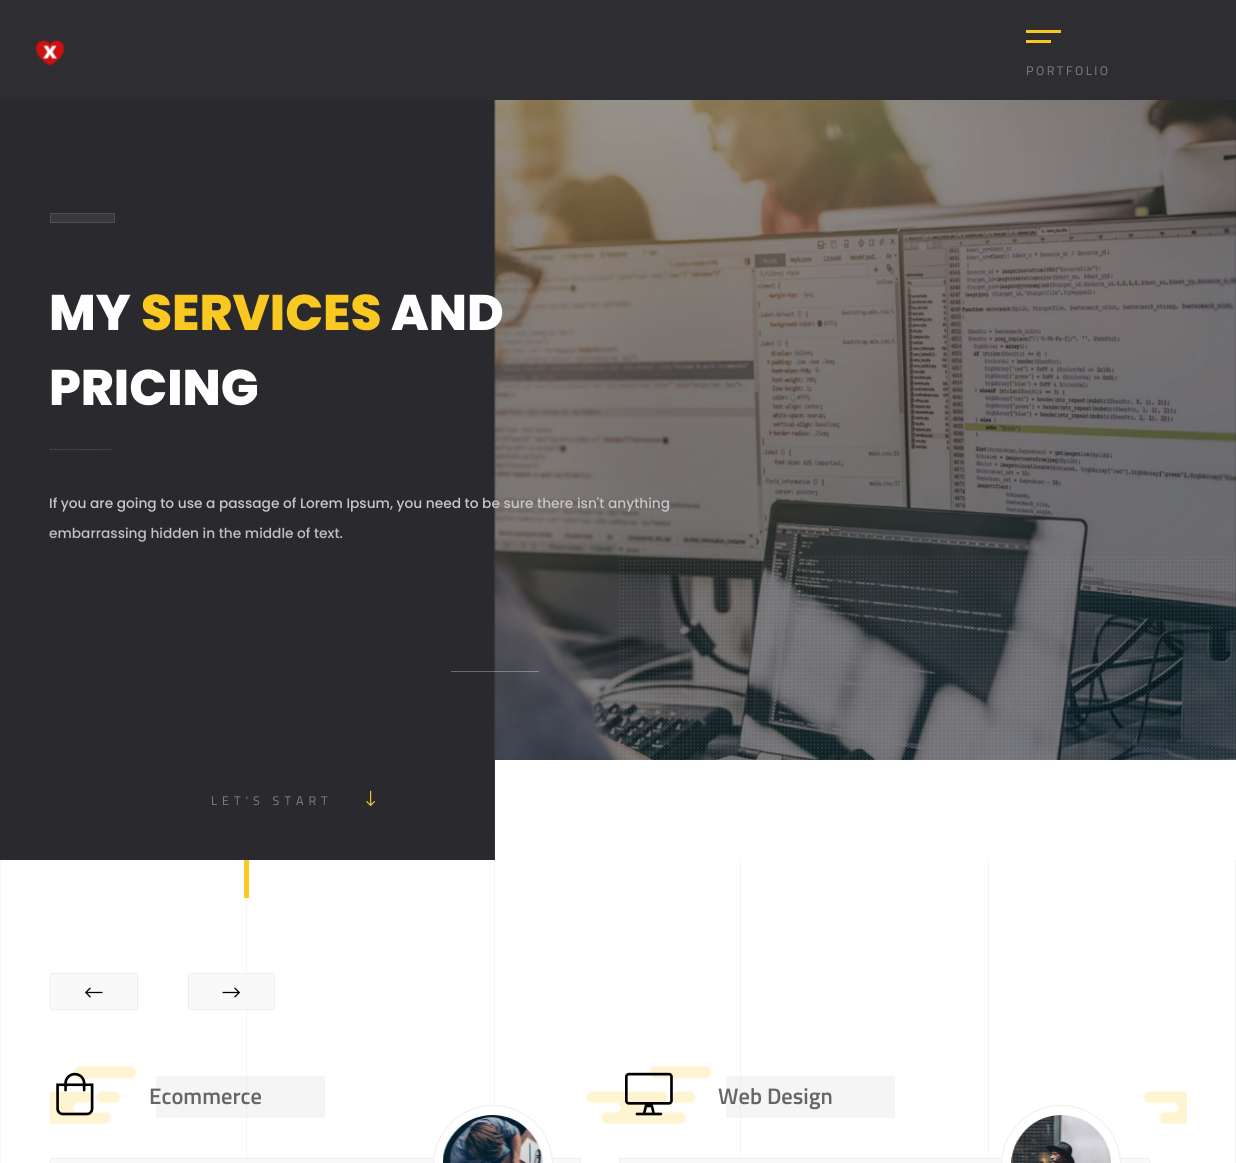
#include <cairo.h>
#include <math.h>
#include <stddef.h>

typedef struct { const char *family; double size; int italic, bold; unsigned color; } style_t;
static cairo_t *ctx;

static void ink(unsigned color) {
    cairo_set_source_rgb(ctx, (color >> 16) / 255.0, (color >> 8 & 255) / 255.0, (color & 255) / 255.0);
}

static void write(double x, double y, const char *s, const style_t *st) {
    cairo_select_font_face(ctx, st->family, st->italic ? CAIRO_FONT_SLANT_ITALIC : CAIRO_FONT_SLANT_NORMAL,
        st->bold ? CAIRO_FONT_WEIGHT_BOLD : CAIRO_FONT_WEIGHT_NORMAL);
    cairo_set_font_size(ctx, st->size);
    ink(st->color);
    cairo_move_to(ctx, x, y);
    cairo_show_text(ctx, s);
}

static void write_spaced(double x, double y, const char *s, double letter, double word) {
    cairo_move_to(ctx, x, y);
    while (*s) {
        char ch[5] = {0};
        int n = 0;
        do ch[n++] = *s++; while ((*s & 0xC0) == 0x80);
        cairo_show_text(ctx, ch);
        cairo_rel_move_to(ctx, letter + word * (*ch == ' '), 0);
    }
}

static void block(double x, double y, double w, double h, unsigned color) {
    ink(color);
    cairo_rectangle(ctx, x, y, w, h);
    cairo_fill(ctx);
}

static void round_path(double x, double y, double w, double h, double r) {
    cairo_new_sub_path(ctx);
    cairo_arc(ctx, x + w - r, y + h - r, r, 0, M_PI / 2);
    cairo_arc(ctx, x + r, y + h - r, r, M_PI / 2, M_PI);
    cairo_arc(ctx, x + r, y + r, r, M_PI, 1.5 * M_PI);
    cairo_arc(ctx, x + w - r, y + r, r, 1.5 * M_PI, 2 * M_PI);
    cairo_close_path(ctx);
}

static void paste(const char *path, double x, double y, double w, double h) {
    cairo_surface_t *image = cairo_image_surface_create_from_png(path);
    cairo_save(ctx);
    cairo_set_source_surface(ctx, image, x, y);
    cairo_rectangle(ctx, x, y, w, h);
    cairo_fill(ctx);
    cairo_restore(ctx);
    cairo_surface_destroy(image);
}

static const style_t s1 = {"Poppins ExtraBold", 50, 0, 0, 0xffffff};
static const style_t s2 = {"Poppins ExtraBold", 50, 0, 0, 0xfac921};
static const style_t s3 = {"Poppins Medium", 13.75, 0, 0, 0xc7c7c7};
static const style_t s4 = {"Poppins Medium", 13.75, 0, 0, 0xc1c1c2};
static const style_t s5 = {"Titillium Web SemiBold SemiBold", 22.5, 0, 0, 0x666666};

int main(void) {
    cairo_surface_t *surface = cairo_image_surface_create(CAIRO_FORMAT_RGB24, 1236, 1163);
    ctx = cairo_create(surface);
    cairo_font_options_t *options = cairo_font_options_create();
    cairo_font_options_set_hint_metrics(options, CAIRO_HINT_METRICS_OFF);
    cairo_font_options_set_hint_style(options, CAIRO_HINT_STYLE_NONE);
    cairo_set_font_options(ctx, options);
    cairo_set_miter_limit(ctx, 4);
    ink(0x2d2d32);
    cairo_paint(ctx);
    paste("pic1.png", 35, 39, 30, 27);
    block(1026, 30, 35, 3, 0xfac921);
    block(1026, 40, 25, 3, 0xfac921);
    cairo_select_font_face(ctx, "Titillium Web", CAIRO_FONT_SLANT_NORMAL, CAIRO_FONT_WEIGHT_NORMAL);
    cairo_set_font_size(ctx, 12.5);
    ink(0x818184);
    write_spaced(1026, 75, "PORTFOLIO", 2.5, 0);
    block(0, 100, 1236, 760, 0x2a2a2e);
    ink(0x39393d);
    cairo_rectangle(ctx, 50.5, 213.5, 64, 9);
    cairo_fill_preserve(ctx);
    ink(0x4f4f52);
    cairo_set_line_width(ctx, 1);
    cairo_stroke(ctx);
    write(49, 330, "MY", &s1);
    write(141, 330, "SERVICES", &s2);
    paste("pic3.png", 494, 100, 742, 760);
    write(391, 330, "AND", &s1);
    write(49, 405, "PRICING", &s1);
    cairo_new_path(ctx);
    cairo_move_to(ctx, 50, 449.5);
    cairo_line_to(ctx, 112.5, 449.5);
    ink(0x57575a);
    cairo_set_line_width(ctx, 1.2);
    cairo_set_dash(ctx, (double[]){1.25, 1.25}, 2, 0);
    cairo_stroke(ctx);
    write(49, 508, "If you are going to use a passage of Lorem Ipsum, you need to be sure there isn't anything", &s3);
    write(49, 538, "embarrassing hidden in the middle of text.", &s4);
    cairo_select_font_face(ctx, "Titillium Web", CAIRO_FONT_SLANT_NORMAL, CAIRO_FONT_WEIGHT_NORMAL);
    cairo_set_font_size(ctx, 12.5);
    ink(0x818184);
    write_spaced(211, 805, "LET'S START", 5, 0);
    paste("pic2.png", 366, 790, 9, 16);
    cairo_set_source_rgba(ctx, 1, 1, 1, 0.31);
    cairo_rectangle(ctx, 451, 671, 88, 1);
    cairo_fill(ctx);
    paste("pic4.png", 619, 556, 616, 204);
    block(495, 760, 741, 100, 0xffffff);
    block(1, 860, 1234, 303, 0xffffff);
    block(726, 1076, 169, 42, 0xf5f5f5);
    block(156, 1076, 169, 42, 0xf5f5f5);
    block(246, 898, 1, 265, 0xf5f5f5);
    block(246, 1076, 1, 42, 0xededed);
    block(0, 860, 1, 303, 0xf6f6f6);
    block(244, 860, 5, 38, 0xfac921);
    block(494, 860, 1, 246, 0xf5f5f5);
    block(740, 860, 1, 303, 0xf5f5f5);
    block(740, 1076, 1, 42, 0xededed);
    block(988, 860, 1, 303, 0xf5f5f5);
    block(1235, 860, 1, 303, 0xf5f5f5);
    ink(0xf9f9f9);
    round_path(50.5, 973.5, 87, 36, 2);
    cairo_fill_preserve(ctx);
    ink(0xeeeeee);
    cairo_set_line_width(ctx, 1);
    cairo_set_dash(ctx, NULL, 0, 0);
    cairo_stroke(ctx);
    paste("pic5.png", 85, 987, 18, 11);
    ink(0xf9f9f9);
    round_path(188.5, 973.5, 86, 36, 2);
    cairo_fill_preserve(ctx);
    ink(0xeeeeee);
    cairo_stroke(ctx);
    paste("pic6.png", 222, 987, 18, 11);
    paste("pic7.png", 50, 1066, 87, 58);
    paste("pic8.png", 56, 1072, 38, 44);
    write(149, 1104, "Ecommerce", &s5);
    ink(0xf9f9f9);
    cairo_rectangle(ctx, 50.5, 1158.5, 530, 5);
    cairo_fill_preserve(ctx);
    ink(0xeeeeee);
    cairo_stroke(ctx);
    ink(0xffffff);
    round_path(433.5, 1105.5, 119, 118, 59.5);
    cairo_fill_preserve(ctx);
    ink(0xeeeeee);
    cairo_stroke(ctx);
    paste("pic9.png", 443, 1115, 100, 48);
    paste("pic10.png", 586, 1066, 126, 58);
    paste("pic11.png", 625, 1072, 48, 44);
    write(718, 1104, "Web Design", &s5);
    ink(0xf9f9f9);
    cairo_rectangle(ctx, 619.5, 1158.5, 530, 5);
    cairo_fill_preserve(ctx);
    ink(0xeeeeee);
    cairo_stroke(ctx);
    ink(0xffffff);
    round_path(1001.5, 1105.5, 119, 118, 59.5);
    cairo_fill_preserve(ctx);
    ink(0xeeeeee);
    cairo_stroke(ctx);
    paste("pic12.png", 1011, 1115, 100, 48);
    paste("pic13.png", 1144, 1091, 43, 33);
    cairo_surface_write_to_png(surface, "screenshot.png");
    cairo_font_options_destroy(options);
    cairo_destroy(ctx);
    cairo_surface_destroy(surface);
    return 0;
}
